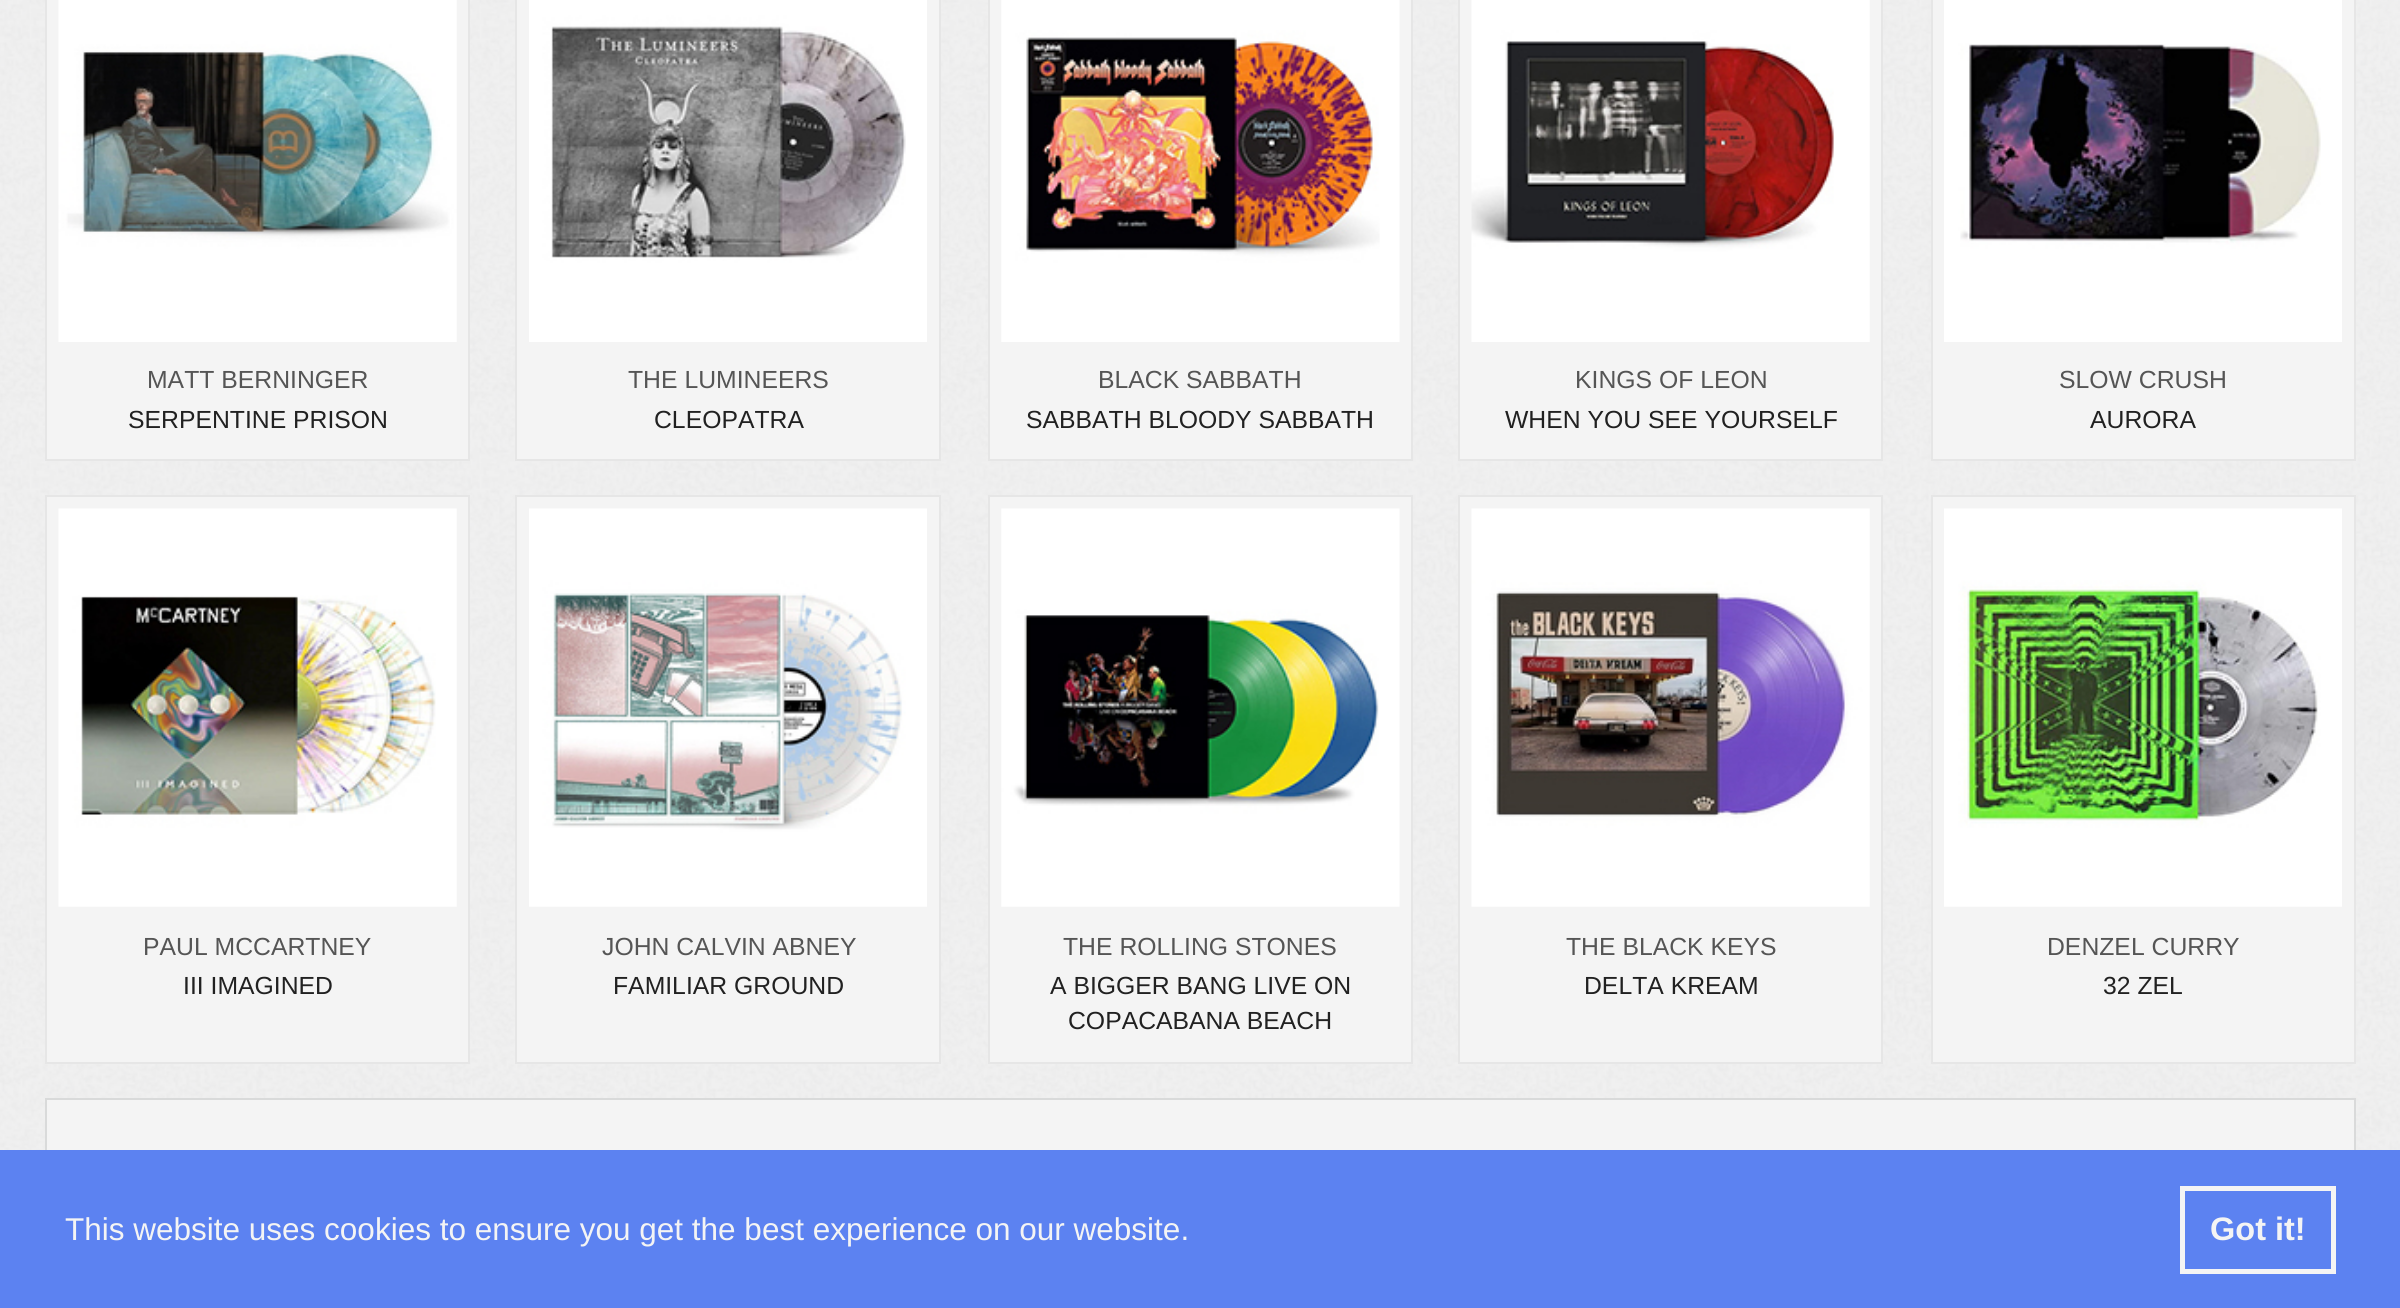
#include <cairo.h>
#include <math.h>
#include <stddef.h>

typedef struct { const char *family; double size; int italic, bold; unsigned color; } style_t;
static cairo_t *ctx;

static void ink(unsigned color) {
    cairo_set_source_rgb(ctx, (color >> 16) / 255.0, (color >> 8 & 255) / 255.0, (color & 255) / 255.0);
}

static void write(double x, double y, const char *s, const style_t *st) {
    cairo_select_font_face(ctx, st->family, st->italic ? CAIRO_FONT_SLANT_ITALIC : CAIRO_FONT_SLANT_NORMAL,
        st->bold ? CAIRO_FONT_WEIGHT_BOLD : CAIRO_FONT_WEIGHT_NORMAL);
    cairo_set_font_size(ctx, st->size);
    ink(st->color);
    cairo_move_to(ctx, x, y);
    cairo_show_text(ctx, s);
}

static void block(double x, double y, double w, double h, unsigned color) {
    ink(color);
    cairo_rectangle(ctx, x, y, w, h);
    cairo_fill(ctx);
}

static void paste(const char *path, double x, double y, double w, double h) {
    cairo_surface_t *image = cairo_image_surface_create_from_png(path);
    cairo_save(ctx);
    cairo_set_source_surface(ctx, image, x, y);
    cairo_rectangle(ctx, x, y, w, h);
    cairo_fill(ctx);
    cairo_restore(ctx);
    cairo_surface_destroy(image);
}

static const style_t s1 = {"Liberation Sans", 24.75, 0, 0, 0x555555};
static const style_t s2 = {"Liberation Sans", 24.75, 0, 0, 0x212121};
static const style_t s3 = {"Liberation Sans", 31.5, 0, 0, 0xf4f4f4};
static const style_t s4 = {"Liberation Sans", 32.5, 0, 1, 0xf4f4f4};

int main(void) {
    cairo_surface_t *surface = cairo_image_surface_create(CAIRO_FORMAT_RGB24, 2400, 1308);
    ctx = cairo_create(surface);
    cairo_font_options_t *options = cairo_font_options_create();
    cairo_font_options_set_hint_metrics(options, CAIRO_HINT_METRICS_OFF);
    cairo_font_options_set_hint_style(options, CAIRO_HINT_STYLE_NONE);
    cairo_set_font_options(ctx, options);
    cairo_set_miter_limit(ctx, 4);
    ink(0xffffff);
    cairo_paint(ctx);
    paste("pic1.png", 0, 0, 2400, 1150);
    ink(0xf4f4f4);
    cairo_rectangle(ctx, 46, -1, 423, 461);
    cairo_fill_preserve(ctx);
    ink(0xe6e6e6);
    cairo_stroke(ctx);
    paste("pic2.png", 58, 0, 399, 342);
    write(147, 388, "MATT BERNINGER", &s1);
    write(128, 428, "SERPENTINE PRISON", &s2);
    ink(0xf4f4f4);
    cairo_rectangle(ctx, 516, -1, 424, 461);
    cairo_fill_preserve(ctx);
    ink(0xe6e6e6);
    cairo_stroke(ctx);
    paste("pic3.png", 529, 0, 398, 342);
    write(628, 388, "THE LUMINEERS", &s1);
    write(654, 428, "CLEOPATRA", &s2);
    ink(0xf4f4f4);
    cairo_rectangle(ctx, 989, -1, 423, 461);
    cairo_fill_preserve(ctx);
    ink(0xe6e6e6);
    cairo_stroke(ctx);
    paste("pic4.png", 1001, 0, 399, 342);
    write(1098, 388, "BLACK SABBATH", &s1);
    write(1026, 428, "SABBATH BLOODY SABBATH", &s2);
    ink(0xf4f4f4);
    cairo_rectangle(ctx, 1459, -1, 423, 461);
    cairo_fill_preserve(ctx);
    ink(0xe6e6e6);
    cairo_stroke(ctx);
    paste("pic5.png", 1471, 0, 399, 342);
    write(1575, 388, "KINGS OF LEON", &s1);
    write(1505, 428, "WHEN YOU SEE YOURSELF", &s2);
    ink(0xf4f4f4);
    cairo_rectangle(ctx, 1932, -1, 423, 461);
    cairo_fill_preserve(ctx);
    ink(0xe6e6e6);
    cairo_stroke(ctx);
    paste("pic6.png", 1944, 0, 398, 342);
    write(2059, 388, "SLOW CRUSH", &s1);
    write(2090, 428, "AURORA", &s2);
    ink(0xf4f4f4);
    cairo_rectangle(ctx, 46, 496, 423, 567);
    cairo_fill_preserve(ctx);
    ink(0xe6e6e6);
    cairo_stroke(ctx);
    paste("pic7.png", 58, 508, 399, 399);
    write(143, 955, "PAUL MCCARTNEY", &s1);
    write(183, 994, "III IMAGINED", &s2);
    ink(0xf4f4f4);
    cairo_rectangle(ctx, 516, 496, 424, 567);
    cairo_fill_preserve(ctx);
    ink(0xe6e6e6);
    cairo_stroke(ctx);
    paste("pic8.png", 529, 508, 398, 399);
    write(602, 955, "JOHN CALVIN ABNEY", &s1);
    write(613, 994, "FAMILIAR GROUND", &s2);
    ink(0xf4f4f4);
    cairo_rectangle(ctx, 989, 496, 423, 567);
    cairo_fill_preserve(ctx);
    ink(0xe6e6e6);
    cairo_stroke(ctx);
    paste("pic9.png", 1001, 508, 399, 399);
    write(1063, 955, "THE ROLLING STONES", &s1);
    write(1050, 994, "A BIGGER BANG LIVE ON", &s2);
    write(1068, 1029, "COPACABANA BEACH", &s2);
    ink(0xf4f4f4);
    cairo_rectangle(ctx, 1459, 496, 423, 567);
    cairo_fill_preserve(ctx);
    ink(0xe6e6e6);
    cairo_stroke(ctx);
    paste("pic10.png", 1471, 508, 399, 399);
    write(1566, 955, "THE BLACK KEYS", &s1);
    write(1584, 994, "DELTA KREAM", &s2);
    ink(0xf4f4f4);
    cairo_rectangle(ctx, 1932, 496, 423, 567);
    cairo_fill_preserve(ctx);
    ink(0xe6e6e6);
    cairo_stroke(ctx);
    paste("pic11.png", 1944, 508, 398, 399);
    write(2047, 955, "DENZEL CURRY", &s1);
    write(2103, 994, "32 ZEL", &s2);
    block(47, 1100, 2307, 50, 0xf4f4f4);
    cairo_rectangle(ctx, 46, 1099, 2309, 102);
    ink(0xd9dada);
    cairo_stroke(ctx);
    block(0, 1150, 2400, 158, 0x5c82f1);
    write(65, 1240, "This website uses cookies to ensure you get the best experience on our website.", &s3);
    cairo_rectangle(ctx, 2182.5, 1188.5, 151, 83);
    cairo_set_line_width(ctx, 5);
    cairo_stroke(ctx);
    write(2210, 1240, "Got it!", &s4);
    cairo_surface_write_to_png(surface, "screenshot.png");
    cairo_font_options_destroy(options);
    cairo_destroy(ctx);
    cairo_surface_destroy(surface);
    return 0;
}
